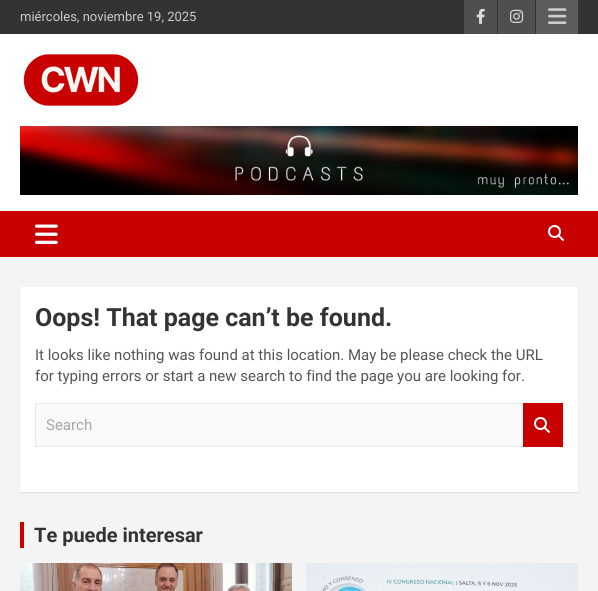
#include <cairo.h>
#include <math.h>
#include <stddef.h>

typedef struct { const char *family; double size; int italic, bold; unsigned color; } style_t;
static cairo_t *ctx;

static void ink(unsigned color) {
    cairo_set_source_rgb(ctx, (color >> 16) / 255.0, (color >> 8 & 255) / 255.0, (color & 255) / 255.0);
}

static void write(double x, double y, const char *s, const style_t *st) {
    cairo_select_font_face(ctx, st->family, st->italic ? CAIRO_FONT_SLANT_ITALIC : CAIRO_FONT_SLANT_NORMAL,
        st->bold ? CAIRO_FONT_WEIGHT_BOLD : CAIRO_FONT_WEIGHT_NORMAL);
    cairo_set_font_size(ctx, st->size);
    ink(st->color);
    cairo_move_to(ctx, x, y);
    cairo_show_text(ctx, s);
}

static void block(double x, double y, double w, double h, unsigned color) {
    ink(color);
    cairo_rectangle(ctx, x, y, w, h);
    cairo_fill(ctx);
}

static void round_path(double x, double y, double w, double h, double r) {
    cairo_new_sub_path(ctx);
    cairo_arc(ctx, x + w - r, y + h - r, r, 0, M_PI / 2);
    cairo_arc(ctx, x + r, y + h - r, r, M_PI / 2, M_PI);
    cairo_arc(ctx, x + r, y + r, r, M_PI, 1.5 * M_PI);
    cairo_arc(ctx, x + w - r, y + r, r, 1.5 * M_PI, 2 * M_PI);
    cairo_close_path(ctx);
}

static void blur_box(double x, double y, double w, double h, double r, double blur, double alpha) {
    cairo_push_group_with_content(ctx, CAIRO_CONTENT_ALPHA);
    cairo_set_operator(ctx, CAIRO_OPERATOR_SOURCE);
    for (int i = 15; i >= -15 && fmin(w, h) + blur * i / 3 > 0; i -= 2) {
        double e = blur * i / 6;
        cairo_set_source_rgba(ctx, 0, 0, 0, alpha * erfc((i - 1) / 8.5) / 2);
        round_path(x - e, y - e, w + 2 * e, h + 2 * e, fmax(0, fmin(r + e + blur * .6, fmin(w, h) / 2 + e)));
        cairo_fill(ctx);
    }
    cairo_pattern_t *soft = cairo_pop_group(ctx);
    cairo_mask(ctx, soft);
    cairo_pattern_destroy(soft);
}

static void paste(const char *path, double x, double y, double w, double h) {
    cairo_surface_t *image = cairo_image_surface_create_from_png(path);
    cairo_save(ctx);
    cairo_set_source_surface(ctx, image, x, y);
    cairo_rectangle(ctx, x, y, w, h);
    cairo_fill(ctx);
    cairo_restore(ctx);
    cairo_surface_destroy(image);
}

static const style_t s1 = {"Roboto", 13, 0, 0, 0xcccccc};
static const style_t s2 = {"Roboto", 25, 0, 1, 0x333333};
static const style_t s3 = {"Roboto", 15, 0, 0, 0x555555};
static const style_t s4 = {"Roboto", 15, 0, 0, 0xa7a7a7};
static const style_t s5 = {"Roboto", 20, 0, 1, 0x333333};

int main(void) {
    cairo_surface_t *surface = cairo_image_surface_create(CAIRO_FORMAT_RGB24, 598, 591);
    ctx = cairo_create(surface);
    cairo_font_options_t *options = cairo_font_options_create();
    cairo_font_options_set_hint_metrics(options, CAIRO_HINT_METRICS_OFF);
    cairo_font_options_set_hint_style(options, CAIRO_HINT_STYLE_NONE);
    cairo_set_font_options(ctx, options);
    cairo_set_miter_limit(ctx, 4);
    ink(0xf4f4f4);
    cairo_paint(ctx);
    block(0, 0, 598, 34, 0x333333);
    write(20, 21, "miércoles, noviembre 19, 2025", &s1);
    block(464, 0, 33, 34, 0x4f4f4f);
    paste("pic1.png", 476, 8, 9, 16);
    block(498, 0, 37, 34, 0x4f4f4f);
    paste("pic2.png", 510, 9, 14, 14);
    block(536, 0, 42, 34, 0x5c5c5c);
    paste("pic3.png", 548, 8, 19, 16);
    block(0, 34, 598, 177, 0xffffff);
    paste("pic4.png", 23, 54, 116, 53);
    paste("pic5.png", 20, 126, 558, 69);
    block(0, 211, 598, 46, 0xc80000);
    paste("pic6.png", 35, 224, 23, 20);
    paste("pic7.png", 548, 225, 16, 16);
    ink(0x000000);
    blur_box(20, 288, 558, 205, 0, 0.5, 0.1);
    block(20, 287, 558, 205, 0xffffff);
    write(35, 326, "Oops! That page can’t be found.", &s2);
    write(35, 360, "It looks like nothing was found at this location. May be please check the URL", &s3);
    write(35, 381, "for typing errors or start a new search to find the page you are looking for.", &s3);
    block(36, 404, 487, 42, 0xf9f9f9);
    ink(0xe8e8e8);
    cairo_new_path(ctx);
    cairo_move_to(ctx, 35, 403);
    cairo_line_to(ctx, 523, 403);
    cairo_line_to(ctx, 523, 404);
    cairo_line_to(ctx, 36, 404);
    cairo_close_path(ctx);
    cairo_fill(ctx);
    cairo_new_path(ctx);
    cairo_move_to(ctx, 523, 447);
    cairo_line_to(ctx, 35, 447);
    cairo_line_to(ctx, 36, 446);
    cairo_line_to(ctx, 523, 446);
    cairo_close_path(ctx);
    cairo_fill(ctx);
    cairo_set_source_rgba(ctx, 0, 0, 0, 0.09);
    cairo_new_path(ctx);
    cairo_move_to(ctx, 35, 447);
    cairo_line_to(ctx, 35, 403);
    cairo_line_to(ctx, 36, 404);
    cairo_line_to(ctx, 36, 446);
    cairo_close_path(ctx);
    cairo_fill(ctx);
    write(46, 430, "Search", &s4);
    block(523, 403, 40, 44, 0xc80000);
    paste("pic7.png", 534, 417, 16, 16);
    block(20, 522, 4, 26, 0xc80000);
    write(34, 542, "Te puede interesar", &s5);
    paste("pic8.png", 20, 563, 272, 28);
    paste("pic9.png", 306, 563, 272, 28);
    cairo_surface_write_to_png(surface, "screenshot.png");
    cairo_font_options_destroy(options);
    cairo_destroy(ctx);
    cairo_surface_destroy(surface);
    return 0;
}
